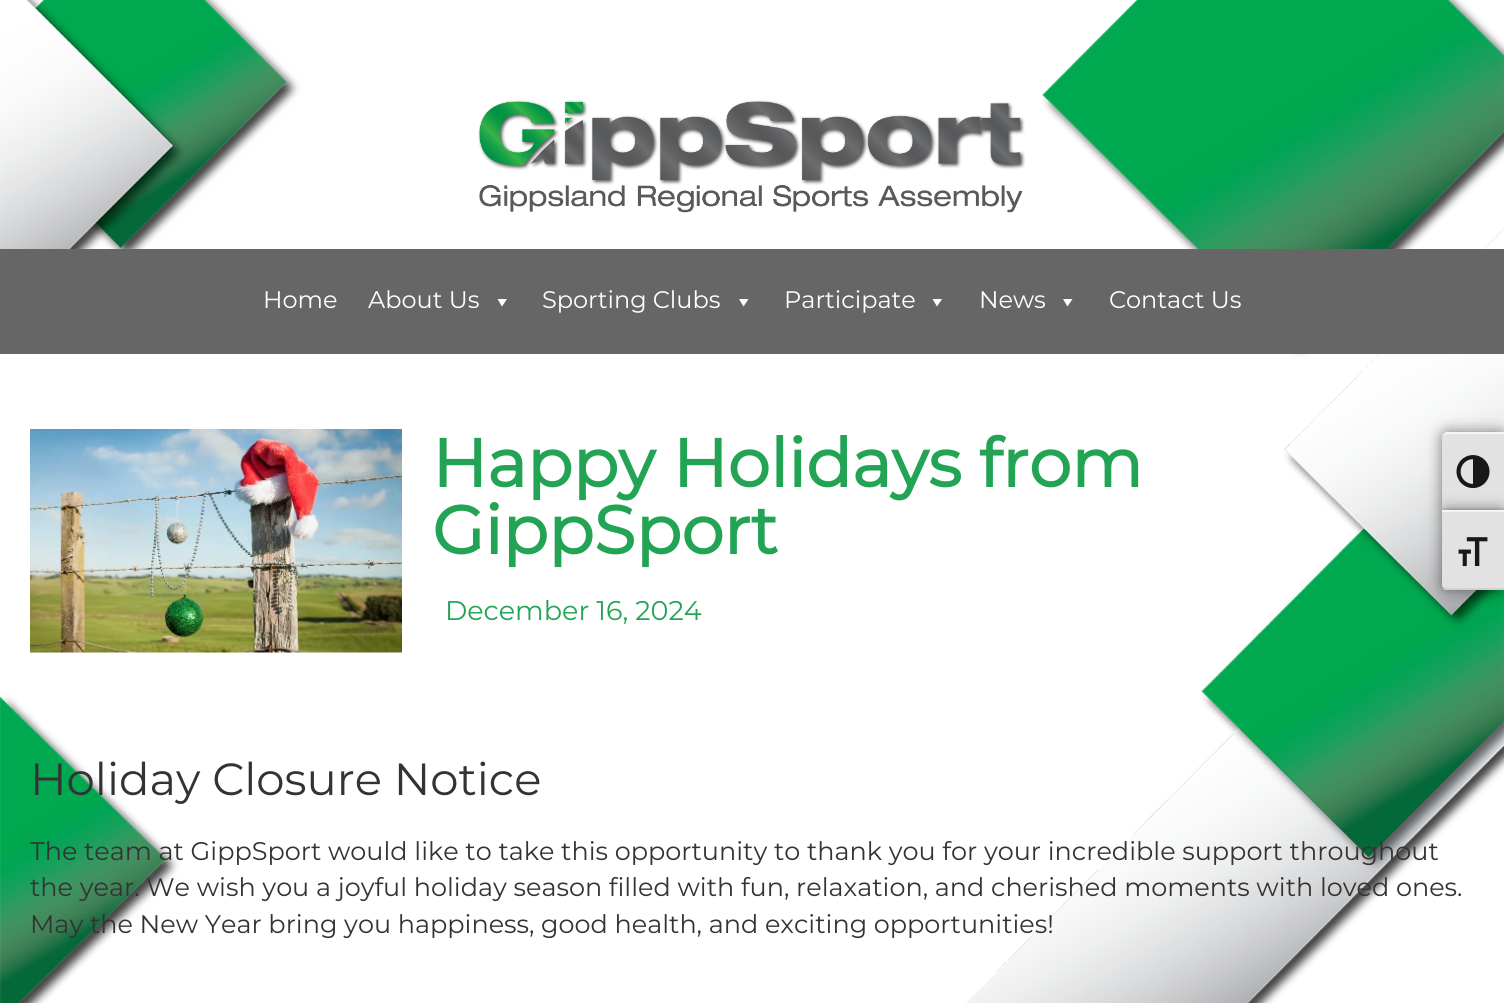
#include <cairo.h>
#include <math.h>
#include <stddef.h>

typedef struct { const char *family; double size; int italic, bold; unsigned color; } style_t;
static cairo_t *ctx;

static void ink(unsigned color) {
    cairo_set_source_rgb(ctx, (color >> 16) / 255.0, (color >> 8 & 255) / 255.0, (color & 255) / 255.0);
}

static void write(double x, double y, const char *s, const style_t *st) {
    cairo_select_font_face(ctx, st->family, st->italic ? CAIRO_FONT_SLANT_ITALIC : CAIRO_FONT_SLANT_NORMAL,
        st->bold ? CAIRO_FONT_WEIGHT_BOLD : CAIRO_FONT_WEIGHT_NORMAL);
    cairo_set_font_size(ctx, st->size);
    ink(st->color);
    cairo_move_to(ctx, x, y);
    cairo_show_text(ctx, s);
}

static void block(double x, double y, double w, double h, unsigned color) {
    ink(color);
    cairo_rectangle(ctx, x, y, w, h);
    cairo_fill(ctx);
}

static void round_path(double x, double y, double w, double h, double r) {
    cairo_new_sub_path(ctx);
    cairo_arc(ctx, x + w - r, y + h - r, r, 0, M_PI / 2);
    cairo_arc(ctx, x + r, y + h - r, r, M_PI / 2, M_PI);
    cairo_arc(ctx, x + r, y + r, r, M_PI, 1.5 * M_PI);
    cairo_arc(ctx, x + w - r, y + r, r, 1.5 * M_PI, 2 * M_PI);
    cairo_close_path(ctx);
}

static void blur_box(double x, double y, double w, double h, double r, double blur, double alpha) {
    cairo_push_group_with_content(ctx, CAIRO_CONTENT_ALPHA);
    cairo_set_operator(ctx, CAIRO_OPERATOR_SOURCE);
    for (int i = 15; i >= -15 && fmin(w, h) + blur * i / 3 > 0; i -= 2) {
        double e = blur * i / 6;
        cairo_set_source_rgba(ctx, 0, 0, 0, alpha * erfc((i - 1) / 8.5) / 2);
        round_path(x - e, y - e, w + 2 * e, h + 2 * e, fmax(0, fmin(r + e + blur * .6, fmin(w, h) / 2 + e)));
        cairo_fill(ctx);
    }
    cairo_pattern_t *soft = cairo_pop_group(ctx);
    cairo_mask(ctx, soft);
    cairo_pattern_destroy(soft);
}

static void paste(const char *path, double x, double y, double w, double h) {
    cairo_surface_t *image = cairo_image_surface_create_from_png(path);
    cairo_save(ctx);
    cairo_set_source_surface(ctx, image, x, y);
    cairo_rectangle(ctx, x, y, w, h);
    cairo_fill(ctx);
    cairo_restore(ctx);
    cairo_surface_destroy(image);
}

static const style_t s1 = {"Montserrat Thin", 24, 0, 0, 0xffffff};
static const style_t s2 = {"Montserrat", 67.5, 0, 1, 0x23a455};
static const style_t s3 = {"Montserrat Thin", 27, 0, 0, 0x23a455};
static const style_t s4 = {"Montserrat Thin", 45, 0, 0, 0x333333};
static const style_t s5 = {"Montserrat Thin", 25.5, 0, 0, 0x333333};

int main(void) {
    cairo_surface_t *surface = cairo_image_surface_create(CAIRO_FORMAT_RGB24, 1504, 1003);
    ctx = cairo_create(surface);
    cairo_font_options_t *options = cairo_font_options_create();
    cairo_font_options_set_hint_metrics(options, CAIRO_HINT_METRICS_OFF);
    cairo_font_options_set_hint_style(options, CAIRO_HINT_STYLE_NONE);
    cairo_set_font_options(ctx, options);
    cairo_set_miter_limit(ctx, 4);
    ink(0xffffff);
    cairo_paint(ctx);
    paste("pic1.png", 0, 0, 1504, 1003);
    paste("pic2.png", 478, 100, 547, 113);
    block(0, 249, 1504, 105, 0x666666);
    write(263, 308, "Home", &s1);
    write(368, 308, "About Us", &s1);
    cairo_new_path(ctx);
    cairo_move_to(ctx, 507, 299);
    cairo_line_to(ctx, 502, 306.5);
    cairo_line_to(ctx, 497.5, 299);
    cairo_close_path(ctx);
    cairo_fill(ctx);
    write(542, 308, "Sporting Clubs", &s1);
    cairo_new_path(ctx);
    cairo_move_to(ctx, 748.5, 299);
    cairo_line_to(ctx, 743.5, 306.5);
    cairo_line_to(ctx, 739, 299);
    cairo_close_path(ctx);
    cairo_fill(ctx);
    write(784, 308, "Participate", &s1);
    cairo_new_path(ctx);
    cairo_move_to(ctx, 942, 299);
    cairo_line_to(ctx, 937, 306.5);
    cairo_line_to(ctx, 932.5, 299);
    cairo_close_path(ctx);
    cairo_fill(ctx);
    write(979, 308, "News", &s1);
    cairo_new_path(ctx);
    cairo_move_to(ctx, 1072.5, 299);
    cairo_line_to(ctx, 1067.5, 306.5);
    cairo_line_to(ctx, 1063, 299);
    cairo_close_path(ctx);
    cairo_fill(ctx);
    write(1109, 308, "Contact Us", &s1);
    paste("pic3.png", 30, 429, 372, 224);
    write(432, 487, "Happy Holidays from", &s2);
    write(432, 554, "GippSport", &s2);
    write(445, 620, "December 16, 2024", &s3);
    write(30, 795, "Holiday Closure Notice", &s4);
    write(30, 860, "The team at GippSport would like to take this opportunity to thank you for your incredible support throughout", &s5);
    write(30, 896, "the year. We wish you a joyful holiday season filled with fun, relaxation, and cherished moments with loved ones.", &s5);
    write(30, 933, "May the New Year bring you happiness, good health, and exciting opportunities!", &s5);
    ink(0x000000);
    blur_box(1442, 432, 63, 78, 6, 7.5, 0.5);
    ink(0xe2e2e2);
    cairo_new_path(ctx);
    cairo_move_to(ctx, 1448, 432);
    cairo_line_to(ctx, 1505, 432);
    cairo_line_to(ctx, 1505, 510);
    cairo_line_to(ctx, 1442, 510);
    cairo_line_to(ctx, 1442, 438);
    cairo_curve_to(ctx, 1442, 434.5, 1444.5, 432, 1448, 432);
    cairo_close_path(ctx);
    cairo_fill(ctx);
    ink(0xf5f5f5);
    cairo_new_path(ctx);
    cairo_move_to(ctx, 1448, 432);
    cairo_curve_to(ctx, 1444, 432, 1442, 435, 1442, 438);
    cairo_curve_to(ctx, 1442, 436, 1444, 434, 1448, 434);
    cairo_line_to(ctx, 1504, 434);
    cairo_line_to(ctx, 1504, 432);
    cairo_close_path(ctx);
    cairo_fill(ctx);
    block(1442, 508, 62, 2, 0xd2d2d2);
    paste("pic4.png", 1456, 455, 34, 34);
    ink(0x000000);
    blur_box(1442, 510, 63, 80, 6, 7.5, 0.5);
    ink(0xe2e2e2);
    cairo_new_path(ctx);
    cairo_move_to(ctx, 1442, 510);
    cairo_line_to(ctx, 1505, 510);
    cairo_line_to(ctx, 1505, 590);
    cairo_line_to(ctx, 1448, 590);
    cairo_curve_to(ctx, 1444.5, 590, 1442, 587.5, 1442, 584);
    cairo_close_path(ctx);
    cairo_fill(ctx);
    block(1442, 510, 62, 2, 0xf5f5f5);
    ink(0xd2d2d2);
    cairo_new_path(ctx);
    cairo_move_to(ctx, 1504, 590);
    cairo_line_to(ctx, 1504, 588);
    cairo_line_to(ctx, 1448, 588);
    cairo_curve_to(ctx, 1444, 588, 1442, 586, 1442, 584);
    cairo_curve_to(ctx, 1442, 586, 1443, 589, 1445, 590);
    cairo_close_path(ctx);
    cairo_fill(ctx);
    paste("pic5.png", 1458, 537, 30, 30);
    cairo_surface_write_to_png(surface, "screenshot.png");
    cairo_font_options_destroy(options);
    cairo_destroy(ctx);
    cairo_surface_destroy(surface);
    return 0;
}
